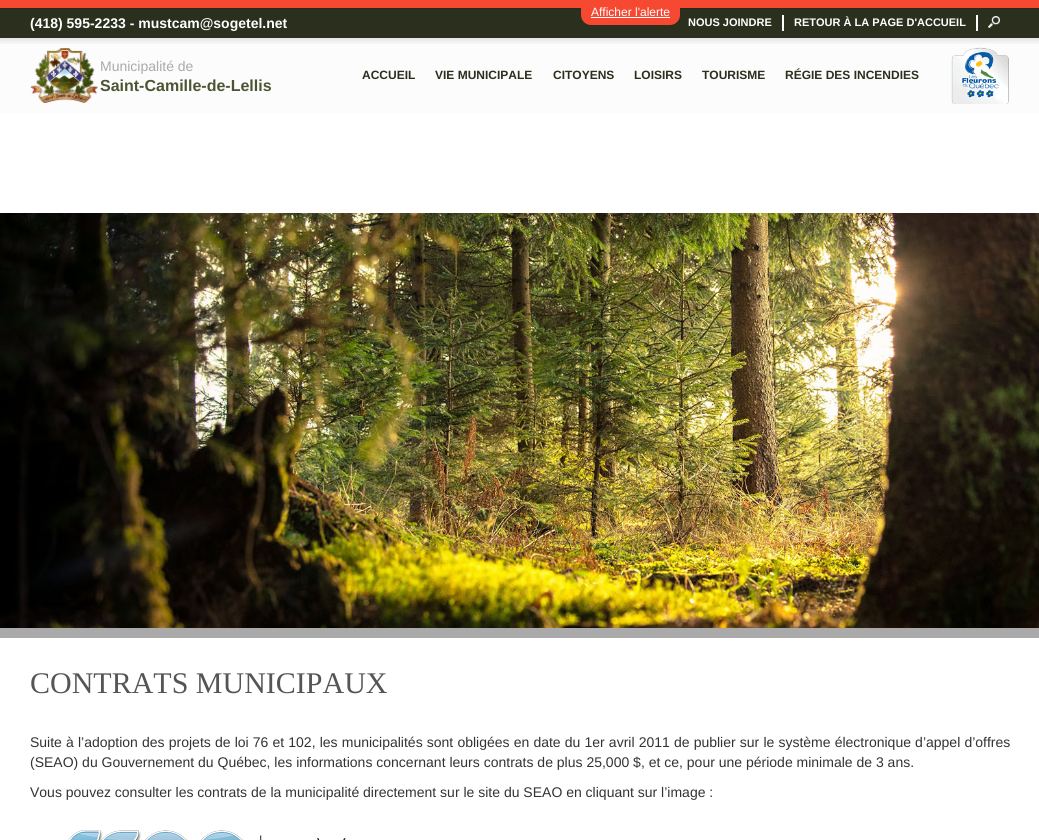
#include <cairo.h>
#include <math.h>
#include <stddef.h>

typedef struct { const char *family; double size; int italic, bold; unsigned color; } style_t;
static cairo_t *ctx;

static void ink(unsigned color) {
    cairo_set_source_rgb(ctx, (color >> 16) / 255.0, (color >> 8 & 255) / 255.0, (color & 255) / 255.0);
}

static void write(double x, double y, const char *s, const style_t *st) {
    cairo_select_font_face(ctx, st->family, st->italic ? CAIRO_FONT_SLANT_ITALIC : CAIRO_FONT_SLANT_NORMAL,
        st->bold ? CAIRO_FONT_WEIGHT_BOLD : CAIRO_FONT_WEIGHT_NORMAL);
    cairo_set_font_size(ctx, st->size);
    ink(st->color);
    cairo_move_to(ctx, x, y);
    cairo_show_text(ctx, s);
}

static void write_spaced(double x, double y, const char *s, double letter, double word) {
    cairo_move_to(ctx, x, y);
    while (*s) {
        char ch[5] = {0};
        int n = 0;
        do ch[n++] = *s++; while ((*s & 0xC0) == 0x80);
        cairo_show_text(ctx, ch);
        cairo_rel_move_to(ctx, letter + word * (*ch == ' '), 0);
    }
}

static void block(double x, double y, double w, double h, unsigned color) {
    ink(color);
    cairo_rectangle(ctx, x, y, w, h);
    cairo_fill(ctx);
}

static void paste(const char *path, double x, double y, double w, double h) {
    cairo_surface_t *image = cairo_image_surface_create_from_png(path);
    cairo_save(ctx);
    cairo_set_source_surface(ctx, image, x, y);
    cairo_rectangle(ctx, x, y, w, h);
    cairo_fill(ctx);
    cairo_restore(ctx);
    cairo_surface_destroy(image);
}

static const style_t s1 = {"Liberation Sans", 12, 0, 0, 0xffffff};
static const style_t s2 = {"Liberation Sans", 14, 0, 1, 0xffffff};
static const style_t s3 = {"Liberation Sans", 11, 0, 1, 0xffffff};
static const style_t s4 = {"Liberation Sans", 14, 0, 0, 0xaaaaaa};
static const style_t s5 = {"Liberation Sans", 16, 0, 1, 0x4b5532};
static const style_t s6 = {"Liberation Sans", 12, 0, 1, 0x2a301d};
static const style_t s7 = {"Liberation Serif", 30, 0, 0, 0x555555};
static const style_t s8 = {"Liberation Sans", 14, 0, 0, 0x333333};

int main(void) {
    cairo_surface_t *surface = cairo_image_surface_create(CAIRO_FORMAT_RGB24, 1039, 840);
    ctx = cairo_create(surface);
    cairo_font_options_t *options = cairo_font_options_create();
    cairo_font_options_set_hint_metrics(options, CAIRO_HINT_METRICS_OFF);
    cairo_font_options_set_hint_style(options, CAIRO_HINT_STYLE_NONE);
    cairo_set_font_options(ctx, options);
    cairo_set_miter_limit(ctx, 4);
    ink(0xffffff);
    cairo_paint(ctx);
    block(0, 0, 1039, 8, 0xf74831);
    block(0, 9, 1039, 29, 0x2a301d);
    block(0, 8, 1039, 1, 0x262c1a);
    ink(0xf74831);
    cairo_new_path(ctx);
    cairo_move_to(ctx, 581, 0);
    cairo_line_to(ctx, 680, 0);
    cairo_line_to(ctx, 680, 15);
    cairo_curve_to(ctx, 680, 20.5, 675.5, 25, 670, 25);
    cairo_line_to(ctx, 591, 25);
    cairo_curve_to(ctx, 585.5, 25, 581, 20.5, 581, 15);
    cairo_close_path(ctx);
    cairo_fill(ctx);
    write(591, 16, "Afficher l'alerte", &s1);
    block(591, 17, 79, 1, 0xffffff);
    write(30, 28, "(418) 595-2233 - mustcam@sogetel.net", &s2);
    write(688, 26, "NOUS JOINDRE", &s3);
    block(782, 15, 2, 16, 0xffffff);
    write(794, 26, "RETOUR À LA PAGE D'ACCUEIL", &s3);
    block(976, 15, 2, 16, 0xffffff);
    paste("pic1.png", 988, 16, 12, 12);
    block(0, 38, 1039, 75, 0xfcfcfc);
    paste("pic2.png", 0, 38, 1039, 6);
    paste("pic3.png", 30, 48, 68, 55);
    write(100, 71, "Municipalité de", &s4);
    write(100, 91, "Saint-Camille-de-Lellis", &s5);
    write(362, 79, "ACCUEIL", &s6);
    write(435, 79, "VIE MUNICIPALE", &s6);
    write(553, 79, "CITOYENS", &s6);
    write(634, 79, "LOISIRS", &s6);
    write(702, 79, "TOURISME", &s6);
    write(785, 79, "RÉGIE DES INCENDIES", &s6);
    paste("pic4.png", 951, 47, 58, 57);
    paste("pic5.png", 0, 213, 1039, 415);
    block(0, 628, 1039, 10, 0xaaaaaa);
    write(30, 693, "CONTRATS MUNICIPAUX", &s7);
    cairo_select_font_face(ctx, "Liberation Sans", CAIRO_FONT_SLANT_NORMAL, CAIRO_FONT_WEIGHT_NORMAL);
    cairo_set_font_size(ctx, 14);
    ink(0x333333);
    write_spaced(30, 747, "Suite à l’adoption des projets de loi 76 et 102, les municipalités sont obligées en date du 1er avril 2011 de publier sur le système électronique d’appel d’offres", 0, 0.25);
    write(30, 767, "(SEAO) du Gouvernement du Québec, les informations concernant leurs contrats de plus 25,000 $, et ce, pour une période minimale de 3 ans.", &s8);
    write(30, 797, "Vous pouvez consulter les contrats de la municipalité directement sur le site du SEAO en cliquant sur l’image :", &s8);
    paste("pic6.png", 68, 830, 278, 10);
    cairo_surface_write_to_png(surface, "screenshot.png");
    cairo_font_options_destroy(options);
    cairo_destroy(ctx);
    cairo_surface_destroy(surface);
    return 0;
}
